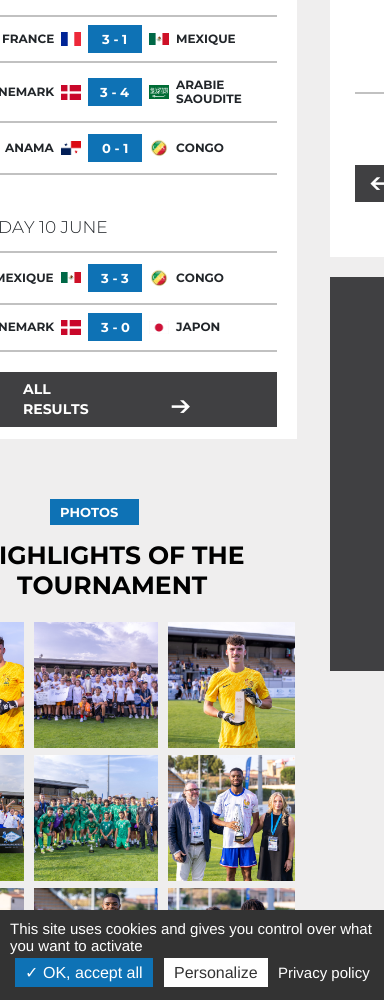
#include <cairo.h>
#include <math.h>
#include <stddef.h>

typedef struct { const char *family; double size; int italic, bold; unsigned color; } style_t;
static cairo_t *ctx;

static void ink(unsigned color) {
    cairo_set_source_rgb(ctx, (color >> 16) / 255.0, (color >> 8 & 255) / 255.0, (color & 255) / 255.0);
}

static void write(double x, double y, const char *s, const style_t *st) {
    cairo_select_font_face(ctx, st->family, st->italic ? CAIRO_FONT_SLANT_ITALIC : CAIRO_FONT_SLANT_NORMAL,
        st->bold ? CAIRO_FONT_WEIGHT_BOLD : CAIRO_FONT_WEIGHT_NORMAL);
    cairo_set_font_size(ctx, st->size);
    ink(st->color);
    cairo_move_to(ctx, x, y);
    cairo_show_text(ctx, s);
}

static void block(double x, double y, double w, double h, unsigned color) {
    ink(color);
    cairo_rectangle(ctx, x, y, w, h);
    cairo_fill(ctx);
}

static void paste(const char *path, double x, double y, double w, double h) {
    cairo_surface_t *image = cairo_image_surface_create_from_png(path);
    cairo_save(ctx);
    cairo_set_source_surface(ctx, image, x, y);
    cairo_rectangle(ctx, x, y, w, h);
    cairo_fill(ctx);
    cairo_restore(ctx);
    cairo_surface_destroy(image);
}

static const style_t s1 = {"Montserrat", 12, 0, 1, 0x212529};
static const style_t s2 = {"Montserrat", 13, 0, 1, 0xffffff};
static const style_t s3 = {"Montserrat Light", 17, 0, 0, 0x212529};
static const style_t s4 = {"Montserrat", 14, 0, 1, 0xffffff};
static const style_t s5 = {"Montserrat", 25, 0, 1, 0x000000};
static const style_t s6 = {"Liberation Sans", 15, 0, 0, 0xffffff};
static const style_t s7 = {"DejaVu Sans", 16, 0, 0, 0xffffff};
static const style_t s8 = {"Liberation Sans", 16, 0, 0, 0xffffff};
static const style_t s9 = {"Liberation Sans", 16, 0, 0, 0x333333};

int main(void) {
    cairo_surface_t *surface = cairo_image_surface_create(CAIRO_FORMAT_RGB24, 384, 1000);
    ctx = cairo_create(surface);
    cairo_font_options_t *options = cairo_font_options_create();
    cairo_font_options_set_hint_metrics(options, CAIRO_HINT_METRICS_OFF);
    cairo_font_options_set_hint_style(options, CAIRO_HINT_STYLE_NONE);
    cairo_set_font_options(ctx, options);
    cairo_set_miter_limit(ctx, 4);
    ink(0xefeeee);
    cairo_paint(ctx);
    block(0, 0, 297, 439, 0xffffff);
    block(0, 15, 277, 2, 0xc1c1c1);
    block(0, 61, 277, 2, 0xc1c1c1);
    write(2, 43, "FRANCE", &s1);
    paste("pic1.png", 61, 32, 20, 14);
    block(88, 25, 54, 28, 0x0e72b5);
    write(102, 44, "3 - 1", &s2);
    paste("pic2.png", 149, 33, 20, 12);
    write(176, 43, "MEXIQUE", &s1);
    block(0, 121, 277, 2, 0xc1c1c1);
    write(-2, 96, "NEMARK", &s1);
    paste("pic3.png", 61, 85, 20, 15);
    block(88, 78, 54, 28, 0x0e72b5);
    write(100, 97, "3 - 4", &s2);
    paste("pic4.png", 149, 85, 20, 14);
    write(176, 89, "ARABIE", &s1);
    write(176, 103, "SAOUDITE", &s1);
    block(0, 173, 277, 2, 0xc1c1c1);
    write(5, 152, "ANAMA", &s1);
    paste("pic5.png", 61, 141, 20, 14);
    block(88, 134, 54, 28, 0x0e72b5);
    write(102, 153, "0 - 1", &s2);
    paste("pic6.png", 150, 139, 18, 18);
    write(176, 152, "CONGO", &s1);
    block(0, 251, 277, 2, 0xc1c1c1);
    write(-2, 233, "DAY 10 JUNE", &s3);
    block(0, 303, 277, 2, 0xc1c1c1);
    write(-6, 282, "MEXIQUE", &s1);
    paste("pic7.png", 61, 272, 20, 11);
    block(88, 264, 54, 28, 0x0e72b5);
    write(101, 283, "3 - 3", &s2);
    paste("pic6.png", 150, 269, 18, 18);
    write(176, 282, "CONGO", &s1);
    block(0, 350, 277, 2, 0xc1c1c1);
    write(-2, 331, "NEMARK", &s1);
    paste("pic3.png", 61, 320, 20, 15);
    block(88, 313, 54, 28, 0x0e72b5);
    write(101, 332, "3 - 0", &s2);
    paste("pic8.png", 149, 321, 20, 13);
    write(176, 331, "JAPON", &s1);
    block(0, 372, 277, 55, 0x404042);
    write(23, 394, "ALL", &s4);
    write(23, 414, "RESULTS", &s4);
    paste("pic9.png", 171, 400, 19, 13);
    block(50, 499, 89, 26, 0x0e72b5);
    write(60, 517, "PHOTOS", &s2);
    write(-1, 564, "IGHLIGHTS OF THE", &s5);
    write(17, 594, "TOURNAMENT", &s5);
    paste("pic10.png", 0, 622, 24, 126);
    paste("pic11.png", 34, 622, 124, 126);
    paste("pic12.png", 168, 622, 127, 126);
    paste("pic13.png", 0, 755, 24, 126);
    paste("pic14.png", 34, 755, 124, 126);
    paste("pic15.png", 168, 755, 127, 126);
    paste("pic16.png", 0, 888, 24, 22);
    paste("pic17.png", 34, 888, 124, 22);
    paste("pic18.png", 168, 888, 127, 22);
    block(330, 0, 54, 257, 0xffffff);
    block(355, 92, 29, 2, 0xc1c1c1);
    block(355, 165, 29, 37, 0x404042);
    paste("pic19.png", 370, 177, 14, 13);
    block(330, 277, 54, 394, 0x404042);
    block(0, 910, 384, 90, 0x333333);
    write(10, 934, "This site uses cookies and gives you control over what", &s6);
    write(10, 951, "you want to activate", &s6);
    block(15, 958, 138, 29, 0x0e72b5);
    write(25, 978, "✓", &s7);
    write(43, 978, "OK, accept all", &s8);
    block(164, 958, 104, 29, 0xffffff);
    write(174, 978, "Personalize", &s9);
    write(278, 978, "Privacy policy", &s6);
    cairo_surface_write_to_png(surface, "screenshot.png");
    cairo_font_options_destroy(options);
    cairo_destroy(ctx);
    cairo_surface_destroy(surface);
    return 0;
}
